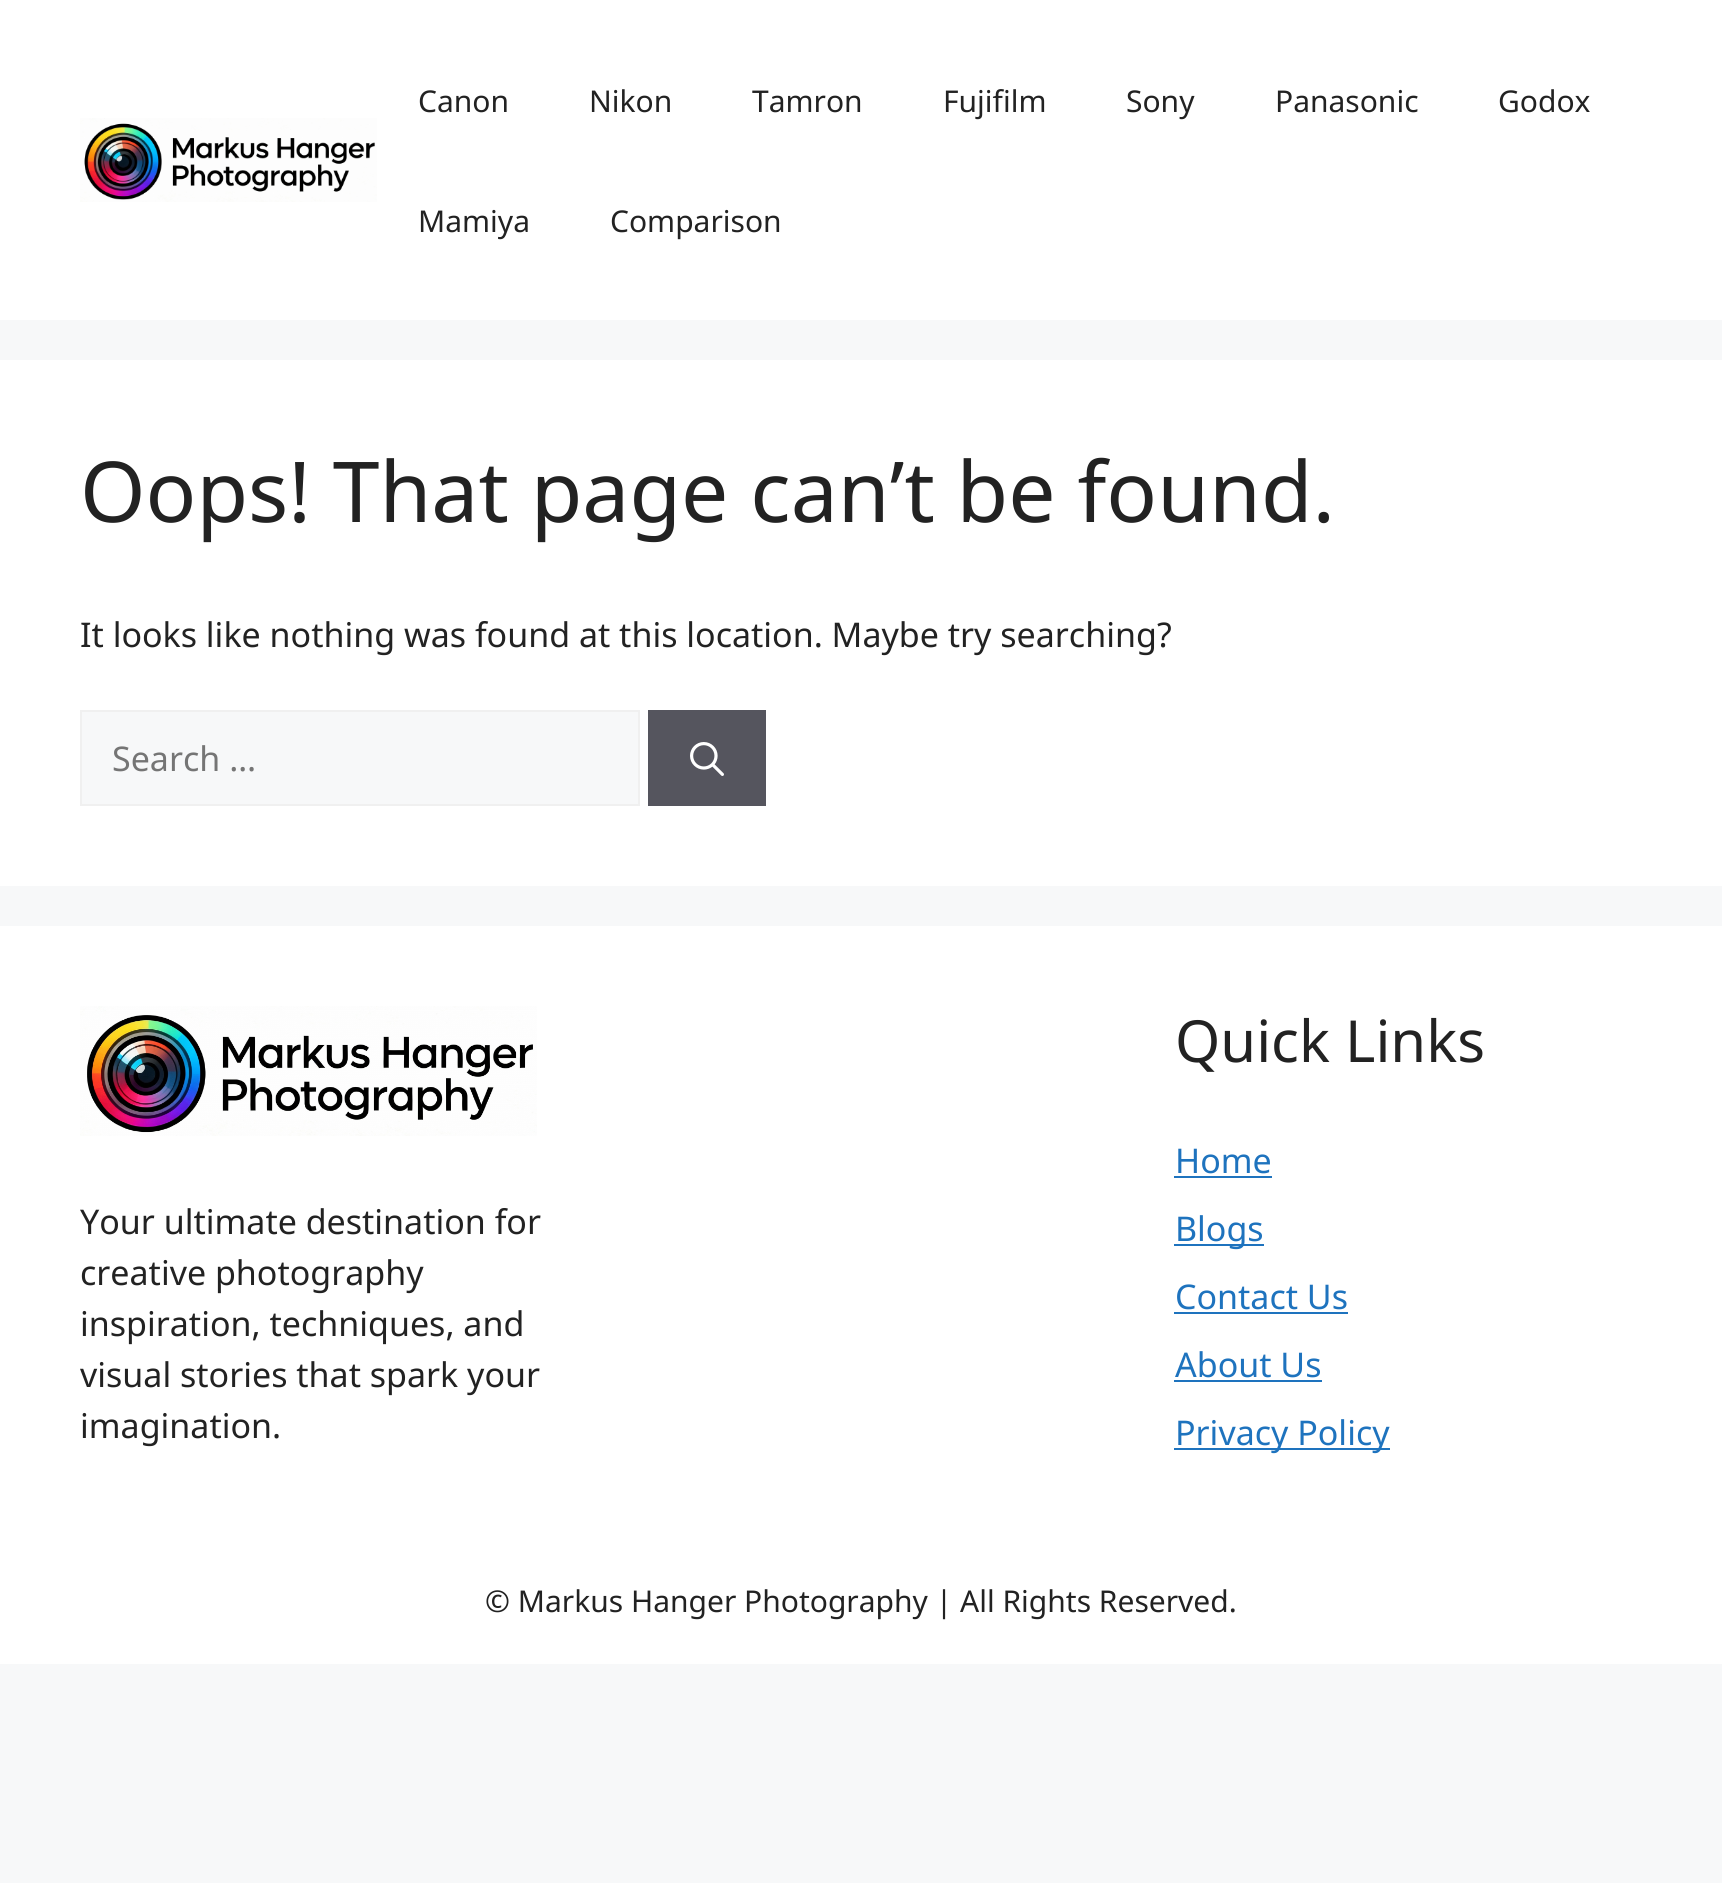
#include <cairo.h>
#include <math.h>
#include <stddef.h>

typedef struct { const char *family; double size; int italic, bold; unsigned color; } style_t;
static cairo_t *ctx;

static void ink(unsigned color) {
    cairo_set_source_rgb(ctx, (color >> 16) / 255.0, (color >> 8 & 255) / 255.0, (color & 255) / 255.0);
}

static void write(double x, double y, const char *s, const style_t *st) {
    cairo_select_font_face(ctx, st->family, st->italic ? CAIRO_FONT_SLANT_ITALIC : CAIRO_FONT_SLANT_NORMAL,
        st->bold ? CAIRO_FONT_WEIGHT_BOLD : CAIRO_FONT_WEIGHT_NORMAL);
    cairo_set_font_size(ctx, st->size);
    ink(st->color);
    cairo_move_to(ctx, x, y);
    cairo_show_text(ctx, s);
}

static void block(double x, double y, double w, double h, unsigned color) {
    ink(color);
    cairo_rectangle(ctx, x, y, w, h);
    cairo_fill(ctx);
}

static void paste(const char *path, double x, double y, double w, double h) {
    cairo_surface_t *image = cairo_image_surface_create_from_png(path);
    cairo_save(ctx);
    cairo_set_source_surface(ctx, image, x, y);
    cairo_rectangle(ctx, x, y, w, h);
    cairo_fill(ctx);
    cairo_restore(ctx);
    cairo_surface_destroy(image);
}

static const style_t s1 = {"Noto Sans", 30, 0, 0, 0x222222};
static const style_t s2 = {"Noto Sans", 84, 0, 0, 0x222222};
static const style_t s3 = {"Noto Sans", 34, 0, 0, 0x222222};
static const style_t s4 = {"Noto Sans", 34, 0, 0, 0x757575};
static const style_t s5 = {"Noto Sans", 58, 0, 0, 0x222222};
static const style_t s6 = {"Noto Sans", 34, 0, 0, 0x1e73be};

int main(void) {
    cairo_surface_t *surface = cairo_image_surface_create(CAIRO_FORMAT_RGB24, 1722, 1883);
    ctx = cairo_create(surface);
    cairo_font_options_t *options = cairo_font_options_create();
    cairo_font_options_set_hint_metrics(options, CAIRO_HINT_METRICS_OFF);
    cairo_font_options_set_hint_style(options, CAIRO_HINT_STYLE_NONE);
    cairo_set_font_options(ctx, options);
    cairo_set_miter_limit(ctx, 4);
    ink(0xf7f8f9);
    cairo_paint(ctx);
    block(0, 0, 1722, 320, 0xffffff);
    paste("pic1.png", 80, 118, 297, 84);
    write(418, 112, "Canon", &s1);
    write(589, 112, "Nikon", &s1);
    write(752, 112, "Tamron", &s1);
    write(943, 112, "Fujifilm", &s1);
    write(1126, 112, "Sony", &s1);
    write(1275, 112, "Panasonic", &s1);
    write(1498, 112, "Godox", &s1);
    write(418, 232, "Mamiya", &s1);
    write(610, 232, "Comparison", &s1);
    block(0, 360, 1722, 526, 0xffffff);
    write(80, 522, "Oops! That page can’t be found.", &s2);
    write(80, 647, "It looks like nothing was found at this location. Maybe try searching?", &s3);
    ink(0xf7f8f9);
    cairo_rectangle(ctx, 81, 711, 558, 94);
    cairo_fill_preserve(ctx);
    ink(0xf0f0f0);
    cairo_stroke(ctx);
    write(112, 771, "Search …", &s4);
    block(648, 710, 118, 96, 0x55555e);
    paste("pic2.png", 690, 742, 34, 34);
    block(0, 926, 1722, 738, 0xffffff);
    paste("pic3.png", 80, 1006, 457, 130);
    write(80, 1234, "Your ultimate destination for", &s3);
    write(80, 1285, "creative photography", &s3);
    write(80, 1336, "inspiration, techniques, and", &s3);
    write(80, 1387, "visual stories that spark your", &s3);
    write(80, 1438, "imagination.", &s3);
    write(1175, 1062, "Quick Links", &s5);
    write(1175, 1173, "Home", &s6);
    block(1174, 1176, 98, 2, 0x1e73be);
    block(1174, 1244, 90, 2, 0x1e73be);
    write(1175, 1241, "Blogs", &s6);
    write(1175, 1309, "Contact Us", &s6);
    block(1174, 1312, 174, 2, 0x1e73be);
    write(1175, 1377, "About Us", &s6);
    block(1174, 1380, 148, 2, 0x1e73be);
    block(1174, 1448, 216, 2, 0x1e73be);
    write(1175, 1445, "Privacy Policy", &s6);
    write(485, 1612, "© Markus Hanger Photography | All Rights Reserved.", &s1);
    cairo_surface_write_to_png(surface, "screenshot.png");
    cairo_font_options_destroy(options);
    cairo_destroy(ctx);
    cairo_surface_destroy(surface);
    return 0;
}
